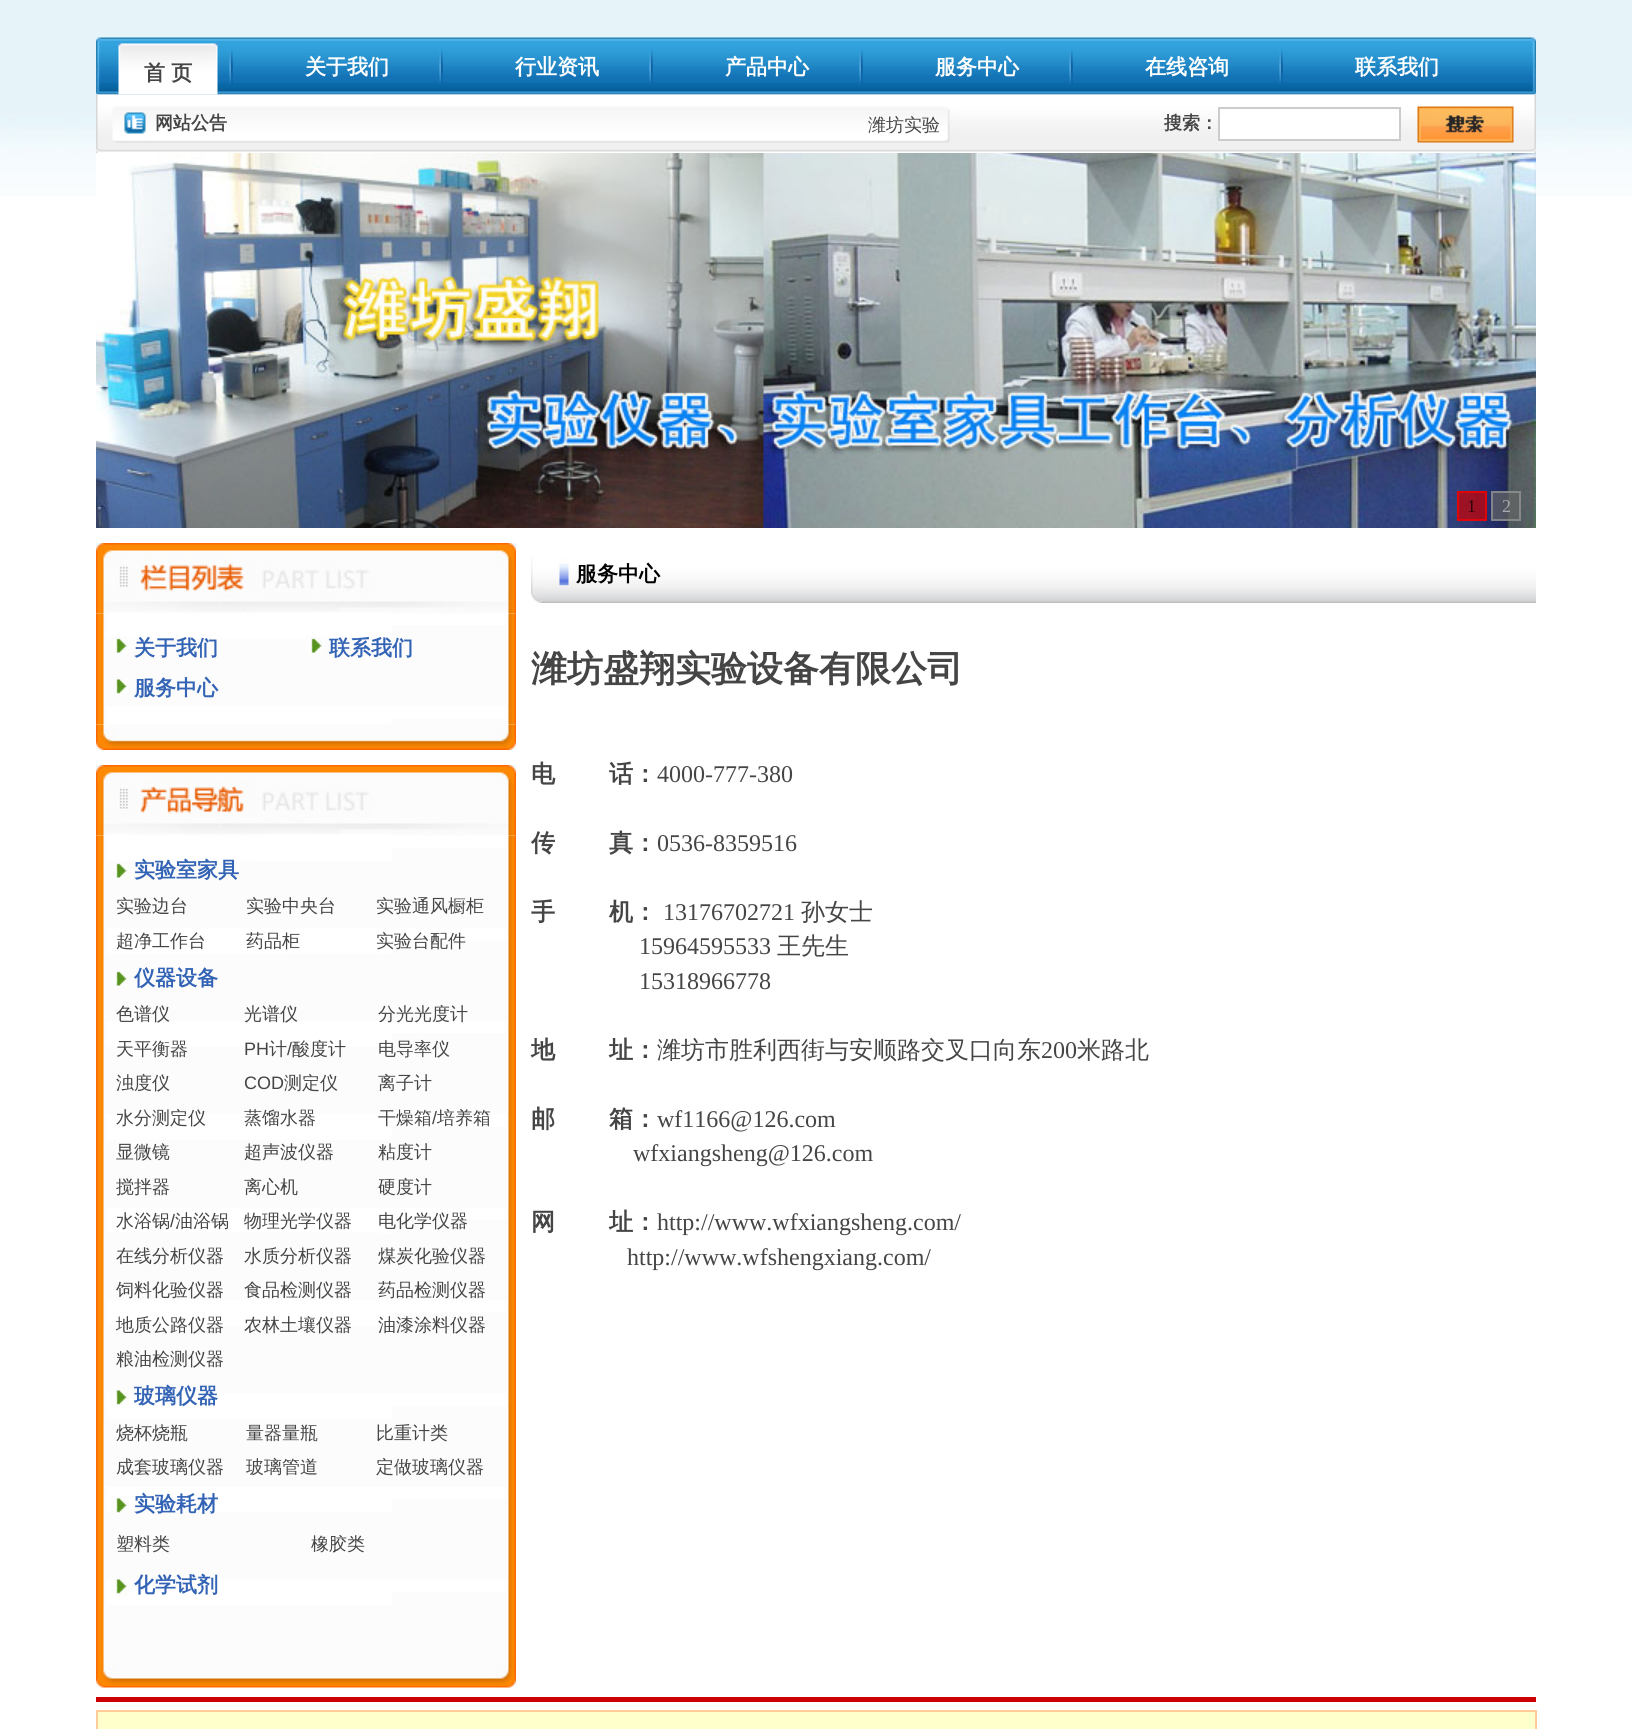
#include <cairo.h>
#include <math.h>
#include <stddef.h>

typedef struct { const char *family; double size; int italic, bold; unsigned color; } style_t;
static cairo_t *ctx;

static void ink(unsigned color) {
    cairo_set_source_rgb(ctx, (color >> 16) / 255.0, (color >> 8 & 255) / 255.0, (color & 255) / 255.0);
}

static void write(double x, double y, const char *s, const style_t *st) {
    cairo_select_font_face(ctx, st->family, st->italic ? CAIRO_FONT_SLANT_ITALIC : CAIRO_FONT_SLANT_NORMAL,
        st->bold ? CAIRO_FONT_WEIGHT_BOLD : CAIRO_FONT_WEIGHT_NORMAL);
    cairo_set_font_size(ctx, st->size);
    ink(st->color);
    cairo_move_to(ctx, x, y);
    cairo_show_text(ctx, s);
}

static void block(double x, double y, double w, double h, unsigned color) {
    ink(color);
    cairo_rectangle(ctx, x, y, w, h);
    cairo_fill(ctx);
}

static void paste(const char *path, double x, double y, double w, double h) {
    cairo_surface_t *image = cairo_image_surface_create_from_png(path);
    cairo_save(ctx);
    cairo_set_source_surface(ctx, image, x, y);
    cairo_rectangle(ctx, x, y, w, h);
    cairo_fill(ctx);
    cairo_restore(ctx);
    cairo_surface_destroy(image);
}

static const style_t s1 = {"WenQuanYi Zen Hei", 21, 0, 1, 0x454545};
static const style_t s2 = {"WenQuanYi Zen Hei", 21, 0, 1, 0xffffff};
static const style_t s3 = {"WenQuanYi Zen Hei", 18, 0, 1, 0x454545};
static const style_t s4 = {"WenQuanYi Zen Hei Medium", 18, 0, 0, 0x454545};
static const style_t s5 = {"Liberation Serif", 18, 0, 0, 0x2f050b};
static const style_t s6 = {"Liberation Serif", 18, 0, 0, 0xa8a9ac};
static const style_t s7 = {"WenQuanYi Zen Hei", 21, 0, 1, 0x3363b5};
static const style_t s8 = {"Liberation Sans", 18, 0, 0, 0x454545};
static const style_t s9 = {"WenQuanYi Zen Hei", 21, 0, 1, 0x000000};
static const style_t s10 = {"WenQuanYi Zen Hei", 36, 0, 1, 0x454545};
static const style_t s11 = {"WenQuanYi Zen Hei", 24, 0, 1, 0x454545};
static const style_t s12 = {"Liberation Serif", 24, 0, 0, 0x454545};
static const style_t s13 = {"WenQuanYi Zen Hei Medium", 24, 0, 0, 0x454545};

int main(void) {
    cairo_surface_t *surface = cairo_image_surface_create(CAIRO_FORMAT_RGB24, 1632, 1729);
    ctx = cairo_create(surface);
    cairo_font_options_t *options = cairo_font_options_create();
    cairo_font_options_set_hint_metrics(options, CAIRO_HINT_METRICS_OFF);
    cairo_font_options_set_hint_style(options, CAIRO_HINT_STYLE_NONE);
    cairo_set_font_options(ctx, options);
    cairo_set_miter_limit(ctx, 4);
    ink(0xffffff);
    cairo_paint(ctx);
    paste("pic1.png", 0, 0, 1632, 196);
    paste("pic2.png", 1163, 0, 19, 1);
    paste("pic3.png", 96, 37, 1440, 58);
    paste("pic6.png", 96, 94, 1440, 59);
    paste("pic4.png", 118, 43, 100, 52);
    write(144, 80, "首 页", &s1);
    paste("pic5.png", 229, 49, 4, 36);
    write(305, 74, "关于我们", &s2);
    paste("pic5.png", 439, 49, 4, 36);
    write(515, 74, "行业资讯", &s2);
    paste("pic5.png", 649, 49, 4, 36);
    write(725, 74, "产品中心", &s2);
    paste("pic5.png", 859, 49, 4, 36);
    write(935, 74, "服务中心", &s2);
    paste("pic5.png", 1069, 49, 4, 36);
    write(1145, 74, "在线咨询", &s2);
    paste("pic5.png", 1279, 49, 4, 36);
    write(1355, 74, "联系我们", &s2);
    write(155, 129, "网站公告", &s3);
    write(868, 131, "潍坊实验", &s4);
    write(1164, 129, "搜索：", &s3);
    block(1220, 111, 179, 28, 0xffffff);
    cairo_rectangle(ctx, 1219, 108, 181, 32);
    ink(0xcccccc);
    cairo_stroke(ctx);
    paste("pic7.png", 1417, 106, 97, 37);
    paste("pic8.png", 96, 153, 1440, 375);
    cairo_set_source_rgba(ctx, 0.8, 0, 0, 0.7);
    cairo_rectangle(ctx, 1457, 491, 30, 30);
    cairo_fill(ctx);
    cairo_rectangle(ctx, 1458, 492, 28, 28);
    cairo_set_source_rgba(ctx, 1, 0, 0, 0.7);
    cairo_stroke(ctx);
    write(1467, 512, "1", &s5);
    cairo_set_source_rgba(ctx, 0.4, 0.4, 0.4, 0.7);
    cairo_rectangle(ctx, 1491, 491, 30, 30);
    cairo_fill(ctx);
    cairo_rectangle(ctx, 1492, 492, 28, 28);
    cairo_set_source_rgba(ctx, 0.6, 0.6, 0.6, 0.7);
    cairo_stroke(ctx);
    write(1502, 512, "2", &s6);
    paste("pic10.png", 96, 613, 420, 112);
    paste("pic9.png", 96, 543, 420, 71);
    paste("pic11.png", 111, 636, 18, 18);
    write(134, 655, "关于我们", &s7);
    paste("pic12.png", 306, 636, 18, 18);
    write(329, 655, "联系我们", &s7);
    paste("pic13.png", 116, 679, 13, 15);
    write(134, 695, "服务中心", &s7);
    paste("pic14.png", 96, 724, 420, 26);
    paste("pic16.png", 96, 835, 420, 827);
    paste("pic15.png", 96, 765, 420, 71);
    paste("pic17.png", 116, 863, 13, 16);
    write(134, 877, "实验室家具", &s7);
    write(116, 912, "实验边台", &s4);
    write(246, 912, "实验中央台", &s4);
    write(376, 912, "实验通风橱柜", &s4);
    write(116, 947, "超净工作台", &s4);
    write(246, 947, "药品柜", &s4);
    write(376, 947, "实验台配件", &s4);
    paste("pic17.png", 116, 971, 13, 16);
    write(134, 985, "仪器设备", &s7);
    write(116, 1020, "色谱仪", &s4);
    write(244, 1020, "光谱仪", &s4);
    write(378, 1020, "分光光度计", &s4);
    write(116, 1055, "天平衡器", &s4);
    write(244, 1055, "PH", &s8);
    write(269, 1055, "计", &s4);
    write(287, 1055, "/", &s8);
    write(292, 1055, "酸度计", &s4);
    write(378, 1055, "电导率仪", &s4);
    write(116, 1089, "浊度仪", &s4);
    write(244, 1089, "COD", &s8);
    write(284, 1089, "测定仪", &s4);
    write(378, 1089, "离子计", &s4);
    write(116, 1124, "水分测定仪", &s4);
    write(244, 1124, "蒸馏水器", &s4);
    write(378, 1124, "干燥箱", &s4);
    write(432, 1124, "/", &s8);
    write(437, 1124, "培养箱", &s4);
    write(116, 1158, "显微镜", &s4);
    write(244, 1158, "超声波仪器", &s4);
    write(378, 1158, "粘度计", &s4);
    write(116, 1193, "搅拌器", &s4);
    write(244, 1193, "离心机", &s4);
    write(378, 1193, "硬度计", &s4);
    write(116, 1227, "水浴锅", &s4);
    write(170, 1227, "/", &s8);
    write(175, 1227, "油浴锅", &s4);
    write(244, 1227, "物理光学仪器", &s4);
    write(378, 1227, "电化学仪器", &s4);
    write(116, 1262, "在线分析仪器", &s4);
    write(244, 1262, "水质分析仪器", &s4);
    write(378, 1262, "煤炭化验仪器", &s4);
    write(116, 1296, "饲料化验仪器", &s4);
    write(244, 1296, "食品检测仪器", &s4);
    write(378, 1296, "药品检测仪器", &s4);
    write(116, 1331, "地质公路仪器", &s4);
    write(244, 1331, "农林土壤仪器", &s4);
    write(378, 1331, "油漆涂料仪器", &s4);
    write(116, 1365, "粮油检测仪器", &s4);
    paste("pic18.png", 111, 1390, 18, 17);
    write(134, 1403, "玻璃仪器", &s7);
    write(116, 1439, "烧杯烧瓶", &s4);
    write(246, 1439, "量器量瓶", &s4);
    write(376, 1439, "比重计类", &s4);
    write(116, 1473, "成套玻璃仪器", &s4);
    write(246, 1473, "玻璃管道", &s4);
    write(376, 1473, "定做玻璃仪器", &s4);
    paste("pic19.png", 111, 1495, 18, 18);
    write(134, 1511, "实验耗材", &s7);
    write(116, 1550, "塑料类", &s4);
    write(311, 1550, "橡胶类", &s4);
    paste("pic18.png", 111, 1579, 18, 17);
    write(134, 1592, "化学试剂", &s7);
    paste("pic20.png", 96, 1662, 420, 26);
    paste("pic21.png", 531, 556, 1005, 47);
    write(576, 581, "服务中心", &s9);
    write(531, 681, "潍坊盛翔实验设备有限公司", &s10);
    write(531, 782, "电", &s11);
    write(609, 782, "话：", &s11);
    write(657, 782, "4000-777-380", &s12);
    write(531, 851, "传", &s11);
    write(609, 851, "真：", &s11);
    write(657, 851, "0536-8359516", &s12);
    write(531, 920, "手", &s11);
    write(609, 920, "机：", &s11);
    write(663, 920, "13176702721", &s12);
    write(801, 920, "孙女士", &s13);
    write(639, 954, "15964595533", &s12);
    write(777, 954, "王先生", &s13);
    write(639, 989, "15318966778", &s12);
    write(531, 1058, "地", &s11);
    write(609, 1058, "址：", &s11);
    write(657, 1058, "潍坊市胜利西街与安顺路交叉口向东", &s13);
    write(1041, 1058, "200", &s12);
    write(1077, 1058, "米路北", &s13);
    write(531, 1127, "邮", &s11);
    write(609, 1127, "箱：", &s11);
    write(657, 1127, "wf1166@126.com", &s12);
    write(633, 1161, "wfxiangsheng@126.com", &s12);
    write(531, 1230, "网", &s11);
    write(609, 1230, "址：", &s11);
    write(657, 1230, "http://www.wfxiangsheng.com/", &s12);
    write(627, 1265, "http://www.wfshengxiang.com/", &s12);
    block(96, 1697, 1440, 5, 0xcc0000);
    block(98, 1712, 1437, 17, 0xffffcc);
    block(96, 1710, 1440, 2, 0xffcc99);
    block(1535, 1710, 2, 19, 0xffcc99);
    block(96, 1710, 2, 19, 0xffcc99);
    cairo_surface_write_to_png(surface, "screenshot.png");
    cairo_font_options_destroy(options);
    cairo_destroy(ctx);
    cairo_surface_destroy(surface);
    return 0;
}
